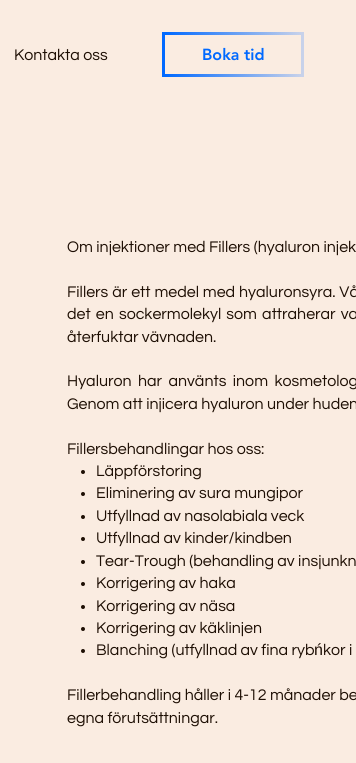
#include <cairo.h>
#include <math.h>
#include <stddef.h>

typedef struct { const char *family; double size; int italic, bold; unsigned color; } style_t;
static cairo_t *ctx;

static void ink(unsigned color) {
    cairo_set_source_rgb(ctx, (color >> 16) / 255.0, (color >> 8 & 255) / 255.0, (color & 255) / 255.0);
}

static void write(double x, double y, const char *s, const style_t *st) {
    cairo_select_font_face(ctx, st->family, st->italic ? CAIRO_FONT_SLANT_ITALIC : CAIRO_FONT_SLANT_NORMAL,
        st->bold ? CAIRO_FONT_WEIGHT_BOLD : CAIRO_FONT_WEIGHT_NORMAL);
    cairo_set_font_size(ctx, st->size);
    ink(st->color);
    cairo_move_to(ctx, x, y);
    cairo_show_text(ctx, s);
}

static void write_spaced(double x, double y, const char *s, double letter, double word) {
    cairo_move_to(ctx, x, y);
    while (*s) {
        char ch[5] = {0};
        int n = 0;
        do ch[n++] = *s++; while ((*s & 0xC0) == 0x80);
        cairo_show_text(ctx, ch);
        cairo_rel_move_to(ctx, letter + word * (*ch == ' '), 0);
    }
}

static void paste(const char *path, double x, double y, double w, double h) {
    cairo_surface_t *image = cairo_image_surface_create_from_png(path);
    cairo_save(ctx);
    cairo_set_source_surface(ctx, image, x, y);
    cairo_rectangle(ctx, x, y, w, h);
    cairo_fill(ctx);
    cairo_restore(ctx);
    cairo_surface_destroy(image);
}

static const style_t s1 = {"Questrial", 16, 0, 0, 0x1d0e03};
static const style_t s2 = {"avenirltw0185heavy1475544 Black", 16, 0, 0, 0x0069ff};
static const style_t s3 = {"Liberation Sans", 16, 0, 0, 0x1d0e03};

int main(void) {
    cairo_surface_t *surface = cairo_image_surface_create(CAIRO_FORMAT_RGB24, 356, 763);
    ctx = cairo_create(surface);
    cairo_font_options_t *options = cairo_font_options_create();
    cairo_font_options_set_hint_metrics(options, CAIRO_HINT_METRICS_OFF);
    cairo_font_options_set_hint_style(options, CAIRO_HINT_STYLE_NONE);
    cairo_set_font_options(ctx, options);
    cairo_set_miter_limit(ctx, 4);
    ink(0xfaece1);
    cairo_paint(ctx);
    write(14, 60, "Kontakta oss", &s1);
    paste("pic1.png", 162, 32, 142, 45);
    write(202, 60, "Boka tid", &s2);
    write(67, 252, "Om injektioner med Fillers (hyaluron injek", &s1);
    write_spaced(67, 297, "Fillers är ett medel med hyaluronsyra. Vå", 0, 0.5);
    write_spaced(67, 319, "det en sockermolekyl som attraherar va", 0, 1.75);
    write(67, 342, "återfuktar vävnaden.", &s1);
    write_spaced(67, 386, "Hyaluron har använts inom kosmetolog", 0, 3);
    write(67, 409, "Genom att injicera hyaluron under huden", &s1);
    write(67, 454, "Fillersbehandlingar hos oss:", &s1);
    cairo_new_path(ctx);
    cairo_arc(ctx, 83, 472, 2, 0, 2 * M_PI);
    cairo_fill(ctx);
    write(96, 476, "Läppförstoring", &s1);
    cairo_new_path(ctx);
    cairo_arc(ctx, 83, 494, 2, 0, 2 * M_PI);
    cairo_fill(ctx);
    write(96, 498, "Eliminering av sura mungipor", &s1);
    cairo_new_path(ctx);
    cairo_arc(ctx, 83, 517, 2, 0, 2 * M_PI);
    cairo_fill(ctx);
    write(96, 521, "Utfyllnad av nasolabiala veck", &s1);
    cairo_new_path(ctx);
    cairo_arc(ctx, 83, 539, 2, 0, 2 * M_PI);
    cairo_fill(ctx);
    write(96, 543, "Utfyllnad av kinder/kindben", &s1);
    cairo_new_path(ctx);
    cairo_arc(ctx, 83, 562, 2, 0, 2 * M_PI);
    cairo_fill(ctx);
    write(96, 566, "Tear-Trough (behandling av insjunkn", &s1);
    cairo_new_path(ctx);
    cairo_arc(ctx, 83, 584, 2, 0, 2 * M_PI);
    cairo_fill(ctx);
    write(96, 588, "Korrigering av haka", &s1);
    cairo_new_path(ctx);
    cairo_arc(ctx, 83, 607, 2, 0, 2 * M_PI);
    cairo_fill(ctx);
    write(96, 611, "Korrigering av näsa", &s1);
    cairo_new_path(ctx);
    cairo_arc(ctx, 83, 629, 2, 0, 2 * M_PI);
    cairo_fill(ctx);
    write(96, 633, "Korrigering av käklinjen", &s1);
    cairo_new_path(ctx);
    cairo_arc(ctx, 83, 651, 2, 0, 2 * M_PI);
    cairo_fill(ctx);
    write(96, 655, "Blanching (utfyllnad av fina ryb", &s1);
    write(314, 655, "ń", &s3);
    write(323, 655, "kor i", &s1);
    write(67, 700, "Fillerbehandling håller i 4-12 månader be", &s1);
    write(67, 723, "egna förutsättningar.", &s1);
    cairo_surface_write_to_png(surface, "screenshot.png");
    cairo_font_options_destroy(options);
    cairo_destroy(ctx);
    cairo_surface_destroy(surface);
    return 0;
}
